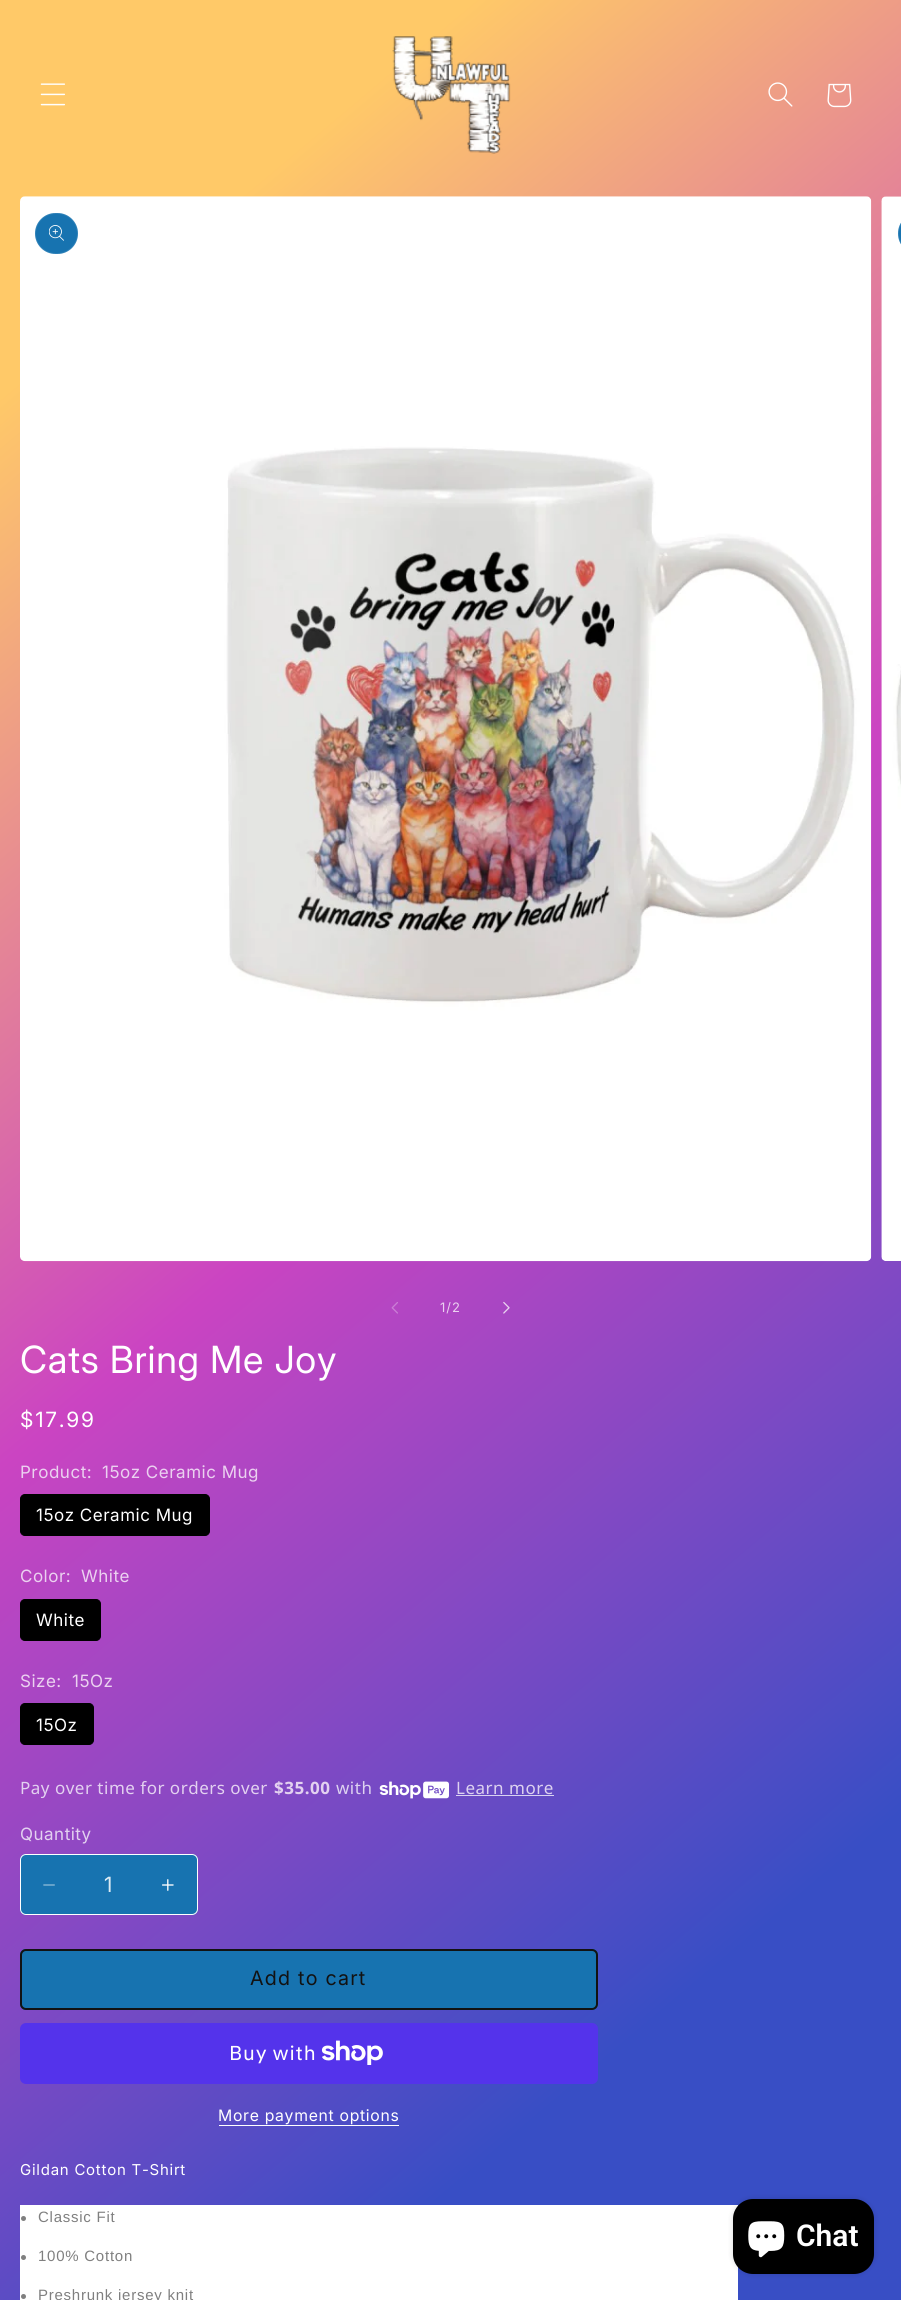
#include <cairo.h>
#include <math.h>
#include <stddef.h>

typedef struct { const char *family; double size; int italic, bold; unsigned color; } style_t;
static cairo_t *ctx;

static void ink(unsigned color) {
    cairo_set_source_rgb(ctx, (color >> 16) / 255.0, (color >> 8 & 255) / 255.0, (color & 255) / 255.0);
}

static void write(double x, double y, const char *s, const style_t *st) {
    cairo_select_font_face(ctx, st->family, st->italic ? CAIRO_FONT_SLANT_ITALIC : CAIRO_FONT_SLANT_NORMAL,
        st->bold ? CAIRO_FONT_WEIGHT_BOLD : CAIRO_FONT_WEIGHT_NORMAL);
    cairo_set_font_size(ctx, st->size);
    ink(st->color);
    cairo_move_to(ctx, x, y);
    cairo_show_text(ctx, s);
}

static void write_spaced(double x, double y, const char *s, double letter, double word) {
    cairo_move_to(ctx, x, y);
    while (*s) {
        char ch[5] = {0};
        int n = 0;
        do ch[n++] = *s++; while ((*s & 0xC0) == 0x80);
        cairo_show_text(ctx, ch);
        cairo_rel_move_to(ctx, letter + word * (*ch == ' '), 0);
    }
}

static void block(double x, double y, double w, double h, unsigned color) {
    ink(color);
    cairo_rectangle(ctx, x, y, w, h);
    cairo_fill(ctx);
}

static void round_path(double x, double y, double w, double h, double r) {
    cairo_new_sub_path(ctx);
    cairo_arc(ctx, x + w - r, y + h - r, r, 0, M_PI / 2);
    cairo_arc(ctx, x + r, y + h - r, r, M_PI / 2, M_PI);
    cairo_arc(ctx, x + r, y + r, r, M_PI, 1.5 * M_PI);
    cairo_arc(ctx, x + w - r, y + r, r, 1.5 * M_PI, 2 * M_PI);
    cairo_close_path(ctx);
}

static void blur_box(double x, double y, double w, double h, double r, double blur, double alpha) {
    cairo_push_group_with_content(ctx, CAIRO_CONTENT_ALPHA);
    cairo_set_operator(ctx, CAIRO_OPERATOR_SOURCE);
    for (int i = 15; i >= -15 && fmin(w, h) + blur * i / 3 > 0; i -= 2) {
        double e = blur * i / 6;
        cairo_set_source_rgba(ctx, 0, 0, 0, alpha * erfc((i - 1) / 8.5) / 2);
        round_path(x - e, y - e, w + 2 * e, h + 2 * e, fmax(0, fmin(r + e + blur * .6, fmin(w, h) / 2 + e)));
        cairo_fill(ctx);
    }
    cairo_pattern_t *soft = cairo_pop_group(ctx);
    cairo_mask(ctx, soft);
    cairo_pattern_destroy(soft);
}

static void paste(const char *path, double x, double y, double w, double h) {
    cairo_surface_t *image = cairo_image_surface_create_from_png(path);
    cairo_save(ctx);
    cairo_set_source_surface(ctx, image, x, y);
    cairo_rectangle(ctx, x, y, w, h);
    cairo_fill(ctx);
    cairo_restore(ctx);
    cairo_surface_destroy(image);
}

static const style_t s1 = {"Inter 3", 21, 0, 0, 0xdceaf3};
static const style_t s2 = {"Roboto SemiBold", 30, 0, 0, 0xffffff};

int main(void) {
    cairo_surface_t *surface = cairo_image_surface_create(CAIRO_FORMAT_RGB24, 901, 2300);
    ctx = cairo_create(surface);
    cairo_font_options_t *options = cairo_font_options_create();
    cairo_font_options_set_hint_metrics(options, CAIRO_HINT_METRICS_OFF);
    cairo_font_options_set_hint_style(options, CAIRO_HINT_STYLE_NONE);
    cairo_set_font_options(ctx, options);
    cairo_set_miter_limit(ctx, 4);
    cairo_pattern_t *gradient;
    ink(0xffffff);
    cairo_paint(ctx);
    gradient = cairo_pattern_create_linear(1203, 2047, -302, 253);
    cairo_pattern_add_color_stop_rgba(gradient, 0.16, 0.22, 0.306, 0.773, 1);
    cairo_pattern_add_color_stop_rgba(gradient, 0.52, 0.796, 0.267, 0.761, 1);
    cairo_pattern_add_color_stop_rgba(gradient, 0.87, 1, 0.788, 0.408, 1);
    cairo_set_source(ctx, gradient);
    cairo_pattern_destroy(gradient);
    cairo_rectangle(ctx, 0, 0, 901, 2300);
    cairo_fill(ctx);
    gradient = cairo_pattern_create_linear(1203, 2047, -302, 253);
    cairo_pattern_add_color_stop_rgba(gradient, 0.16, 0.804, 0.827, 0.945, 1);
    cairo_pattern_add_color_stop_rgba(gradient, 0.52, 0.949, 0.816, 0.941, 1);
    cairo_pattern_add_color_stop_rgba(gradient, 0.87, 1, 0.949, 0.851, 1);
    cairo_set_source(ctx, gradient);
    cairo_pattern_destroy(gradient);
    cairo_rectangle(ctx, 456, 1795, 98, 1);
    cairo_fill(ctx);
    paste("pic1.png", 40, 83, 25, 23);
    paste("pic2.png", 392, 36, 119, 118);
    paste("pic3.png", 768, 82, 25, 25);
    paste("pic4.png", 827, 83, 25, 25);
    paste("pic5.png", 20, 196, 852, 1066);
    ink(0x1773b0);
    round_path(35, 213, 43, 41, 20.5);
    cairo_fill(ctx);
    round_path(35.5, 213.5, 42, 40, 20);
    cairo_set_source_rgba(ctx, 1, 1, 1, 0.1);
    cairo_set_line_width(ctx, 1);
    cairo_stroke(ctx);
    paste("pic6.png", 49, 225, 15, 16);
    paste("pic7.png", 881, 196, 20, 1065);
    ink(0x1773b0);
    cairo_new_path(ctx);
    cairo_move_to(ctx, 918.5, 213);
    cairo_line_to(ctx, 901, 213);
    cairo_line_to(ctx, 901, 254);
    cairo_line_to(ctx, 918.5, 254);
    cairo_curve_to(ctx, 907, 254, 898, 245, 898, 233.5);
    cairo_curve_to(ctx, 898, 222, 907, 213, 918.5, 213);
    cairo_close_path(ctx);
    cairo_fill(ctx);
    round_path(898.5, 213.5, 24, 40, 20);
    cairo_set_source_rgba(ctx, 1, 1, 1, 0.1);
    cairo_stroke(ctx);
    paste("pic8.png", 391, 1302, 7, 12);
    cairo_select_font_face(ctx, "Inter", CAIRO_FONT_SLANT_NORMAL, CAIRO_FONT_WEIGHT_NORMAL);
    cairo_set_font_size(ctx, 13);
    ink(0xebd1f0);
    write_spaced(440, 1312, "1/2", 1, 0);
    paste("pic9.png", 503, 1301, 7, 13);
    cairo_select_font_face(ctx, "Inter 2", CAIRO_FONT_SLANT_NORMAL, CAIRO_FONT_WEIGHT_NORMAL);
    cairo_set_font_size(ctx, 37.5);
    ink(0xffffff);
    write_spaced(20, 1373, "Cats Bring Me Joy", 0.75, 0);
    cairo_select_font_face(ctx, "Inter 3", CAIRO_FONT_SLANT_NORMAL, CAIRO_FONT_WEIGHT_NORMAL);
    cairo_set_font_size(ctx, 21);
    write_spaced(20, 1427, "$17.99", 1.75, 0);
    cairo_select_font_face(ctx, "Inter", CAIRO_FONT_SLANT_NORMAL, CAIRO_FONT_WEIGHT_NORMAL);
    cairo_set_font_size(ctx, 17);
    ink(0xebd1f0);
    write_spaced(20, 1478, "Product:", 0.5, 0);
    write_spaced(102, 1478, "15oz Ceramic Mug", 0.5, 0);
    ink(0x000000);
    round_path(20.5, 1494.5, 189, 41, 4.5);
    cairo_fill_preserve(ctx);
    cairo_stroke(ctx);
    ink(0xffffff);
    write_spaced(36, 1521, "15oz Ceramic Mug", 0.5, 0);
    ink(0xebd1f0);
    write_spaced(20, 1582, "Color:", 0.5, 0);
    write_spaced(81, 1582, "White", 0.5, 0);
    ink(0x000000);
    round_path(20.5, 1599.5, 80, 41, 4.5);
    cairo_fill_preserve(ctx);
    cairo_stroke(ctx);
    ink(0xffffff);
    write_spaced(36, 1626, "White", 0.5, 0);
    ink(0xebd1f0);
    write_spaced(20, 1687, "Size:", 0.5, 0);
    write_spaced(72, 1687, "15Oz", 0.5, 0);
    ink(0x000000);
    round_path(20.5, 1703.5, 73, 41, 4.5);
    cairo_fill_preserve(ctx);
    cairo_stroke(ctx);
    ink(0xffffff);
    write_spaced(36, 1731, "15Oz", 0.5, 0);
    cairo_select_font_face(ctx, "Noto Sans", CAIRO_FONT_SLANT_NORMAL, CAIRO_FONT_WEIGHT_NORMAL);
    ink(0xe3d1f0);
    write_spaced(20, 1794, "Pay over time for orders over", 0.5, 0);
    cairo_select_font_face(ctx, "Noto Sans", CAIRO_FONT_SLANT_NORMAL, CAIRO_FONT_WEIGHT_BOLD);
    write_spaced(274, 1794, "$35.00", 0.5, 0);
    cairo_select_font_face(ctx, "Noto Sans", CAIRO_FONT_SLANT_NORMAL, CAIRO_FONT_WEIGHT_NORMAL);
    ink(0xddd2f0);
    write_spaced(336, 1794, "with", 0.5, 0);
    paste("pic10.png", 379, 1781, 70, 18);
    write_spaced(456, 1794, "Learn more", 0.5, 0);
    cairo_select_font_face(ctx, "Inter", CAIRO_FONT_SLANT_NORMAL, CAIRO_FONT_WEIGHT_NORMAL);
    ink(0xe3d1f0);
    write_spaced(20, 1840, "Quantity", 0.5, 0);
    ink(0x1773b0);
    round_path(20, 1854, 178, 61, 6);
    cairo_fill(ctx);
    paste("pic11.png", 43, 1884, 12, 2);
    paste("pic12.png", 162, 1879, 12, 12);
    round_path(20.5, 1854.5, 177, 60, 5.5);
    ink(0xffffff);
    cairo_stroke(ctx);
    write(104, 1892, "1", &s1);
    ink(0x1773b0);
    round_path(20, 1949, 578, 61, 6);
    cairo_fill(ctx);
    round_path(20.5, 1949.5, 577, 60, 5.5);
    cairo_stroke(ctx);
    round_path(21, 1950, 576, 59, 5);
    ink(0x121212);
    cairo_set_line_width(ctx, 2);
    cairo_stroke(ctx);
    cairo_select_font_face(ctx, "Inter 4", CAIRO_FONT_SLANT_NORMAL, CAIRO_FONT_WEIGHT_NORMAL);
    cairo_set_font_size(ctx, 19.75);
    write_spaced(250, 1985, "Add to cart", 1.25, 0);
    ink(0x5433eb);
    round_path(20, 2023, 578, 61, 6);
    cairo_fill(ctx);
    cairo_select_font_face(ctx, "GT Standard", CAIRO_FONT_SLANT_NORMAL, CAIRO_FONT_WEIGHT_NORMAL);
    cairo_set_font_size(ctx, 20);
    ink(0xffffff);
    write_spaced(229, 2060, "Buy with", 0.75, 0);
    paste("pic13.png", 321, 2040, 62, 25);
    cairo_select_font_face(ctx, "Inter", CAIRO_FONT_SLANT_NORMAL, CAIRO_FONT_WEIGHT_NORMAL);
    cairo_set_font_size(ctx, 15.75);
    write_spaced(218, 2121, "More payment options", 0.7, 0);
    block(219, 2125, 180, 1, 0xffffff);
    cairo_set_font_size(ctx, 15);
    write_spaced(20, 2175, "Gildan Cotton T-Shirt", 0.75, 0);
    block(20, 2205, 718, 95, 0xffffff);
    ink(0x7f7f7f);
    cairo_new_path(ctx);
    cairo_arc(ctx, 23.5, 2218.5, 2.5, 0, 2 * M_PI);
    cairo_fill(ctx);
    cairo_select_font_face(ctx, "Liberation Sans", CAIRO_FONT_SLANT_NORMAL, CAIRO_FONT_WEIGHT_NORMAL);
    write_spaced(38, 2222, "Classic Fit", 0.75, 0);
    cairo_new_path(ctx);
    cairo_arc(ctx, 23.5, 2257.5, 2.5, 0, 2 * M_PI);
    cairo_fill(ctx);
    write_spaced(38, 2261, "100% Cotton", 0.75, 0);
    cairo_new_path(ctx);
    cairo_arc(ctx, 23.5, 2296.5, 2.5, 0, 2 * M_PI);
    cairo_fill(ctx);
    write_spaced(38, 2300, "Preshrunk jersey knit", 0.75, 0);
    ink(0x000000);
    blur_box(733, 2199, 141, 75, 20, 3, 0.15);
    ink(0x000000);
    round_path(733, 2199, 141, 75, 20);
    cairo_fill(ctx);
    paste("pic14.png", 748, 2221, 37, 37);
    write(796, 2246, "Chat", &s2);
    cairo_surface_write_to_png(surface, "screenshot.png");
    cairo_font_options_destroy(options);
    cairo_destroy(ctx);
    cairo_surface_destroy(surface);
    return 0;
}
